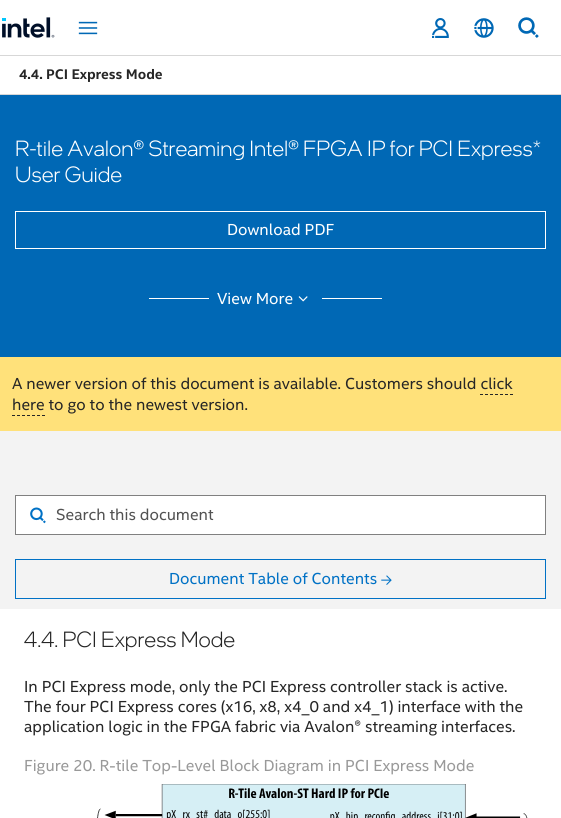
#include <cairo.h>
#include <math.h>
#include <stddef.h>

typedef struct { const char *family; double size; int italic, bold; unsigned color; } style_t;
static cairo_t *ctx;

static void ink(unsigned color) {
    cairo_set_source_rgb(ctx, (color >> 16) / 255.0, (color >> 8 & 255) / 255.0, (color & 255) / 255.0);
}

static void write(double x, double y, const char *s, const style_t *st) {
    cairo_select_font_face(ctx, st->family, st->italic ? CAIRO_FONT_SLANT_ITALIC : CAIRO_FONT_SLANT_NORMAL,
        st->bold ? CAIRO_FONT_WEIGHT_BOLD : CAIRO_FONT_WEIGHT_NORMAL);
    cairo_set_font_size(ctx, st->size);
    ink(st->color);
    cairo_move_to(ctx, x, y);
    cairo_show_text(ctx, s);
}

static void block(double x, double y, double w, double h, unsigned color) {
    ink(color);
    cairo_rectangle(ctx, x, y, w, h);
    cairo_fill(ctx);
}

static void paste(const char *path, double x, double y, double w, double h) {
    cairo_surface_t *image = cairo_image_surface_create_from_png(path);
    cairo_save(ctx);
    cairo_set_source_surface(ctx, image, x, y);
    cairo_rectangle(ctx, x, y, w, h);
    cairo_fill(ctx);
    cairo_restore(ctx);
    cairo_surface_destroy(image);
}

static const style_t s1 = {"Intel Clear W", 14, 0, 1, 0x262626};
static const style_t s2 = {"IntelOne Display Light", 22, 0, 0, 0xffffff};
static const style_t s3 = {"Intel Clear W", 16, 0, 0, 0xffffff};
static const style_t s4 = {"Intel Clear W", 16, 0, 0, 0x262626};
static const style_t s5 = {"Intel Clear W", 16, 0, 0, 0x525252};
static const style_t s6 = {"Intel Clear W", 16, 0, 0, 0x0071c5};
static const style_t s7 = {"IntelOne Display Light", 22, 0, 0, 0x262626};
static const style_t s8 = {"Intel Clear W", 16, 0, 0, 0x999999};

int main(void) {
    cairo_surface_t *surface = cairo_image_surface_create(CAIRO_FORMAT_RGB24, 561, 818);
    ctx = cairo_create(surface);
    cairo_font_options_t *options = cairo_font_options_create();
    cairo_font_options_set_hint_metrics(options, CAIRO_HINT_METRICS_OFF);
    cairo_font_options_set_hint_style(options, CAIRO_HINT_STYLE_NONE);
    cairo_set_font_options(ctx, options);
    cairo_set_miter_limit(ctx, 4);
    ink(0xffffff);
    cairo_paint(ctx);
    block(0, 55, 561, 1, 0xd7d7d7);
    paste("pic1.png", 2, 17, 53, 21);
    paste("pic2.png", 78, 21, 20, 14);
    paste("pic3.png", 432, 18, 17, 20);
    paste("pic4.png", 474, 18, 20, 20);
    paste("pic5.png", 518, 17, 21, 21);
    block(0, 94, 561, 1, 0xd7d7d7);
    write(19, 79, "4.4. PCI Express Mode", &s1);
    block(0, 95, 561, 262, 0x0068b5);
    write(15, 156, "R-tile Avalon® Streaming Intel® FPGA IP for PCI Express*", &s2);
    write(15, 182, "User Guide", &s2);
    cairo_rectangle(ctx, 15.5, 211.5, 530, 37);
    cairo_set_line_width(ctx, 1);
    cairo_stroke(ctx);
    write(227, 235, "Download PDF", &s3);
    block(149, 298, 60, 1, 0xffffff);
    write(217, 304, "View More", &s3);
    paste("pic6.png", 298, 296, 10, 6);
    block(322, 298, 60, 1, 0xffffff);
    block(0, 357, 561, 74, 0xffe17a);
    write(12, 389, "A newer version of this document is available. Customers should click", &s4);
    write(12, 410, "here to go to the newest version.", &s4);
    cairo_new_path(ctx);
    cairo_move_to(ctx, 480, 394.5);
    cairo_line_to(ctx, 513, 394.5);
    cairo_set_dash(ctx, (double[]){3, 2}, 2, 0);
    cairo_stroke(ctx);
    cairo_new_path(ctx);
    cairo_move_to(ctx, 12, 415.5);
    cairo_line_to(ctx, 45, 415.5);
    cairo_stroke(ctx);
    block(0, 431, 561, 178, 0xf3f3f3);
    ink(0xffffff);
    cairo_rectangle(ctx, 15.5, 495.5, 530, 39);
    cairo_fill_preserve(ctx);
    ink(0x808080);
    cairo_set_dash(ctx, NULL, 0, 0);
    cairo_stroke(ctx);
    paste("pic7.png", 30, 507, 16, 17);
    write(56, 520, "Search this document", &s5);
    cairo_rectangle(ctx, 15.5, 559.5, 530, 39);
    ink(0x0071c5);
    cairo_stroke(ctx);
    write(169, 584, "Document Table of Contents", &s6);
    paste("pic8.png", 381, 575, 11, 10);
    write(24, 647, "4.4. PCI Express Mode", &s7);
    write(24, 692, "In PCI Express mode, only the PCI Express controller stack is active.", &s4);
    write(24, 712, "The four PCI Express cores (x16, x8, x4_0 and x4_1) interface with the", &s4);
    write(24, 732, "application logic in the FPGA fabric via Avalon® streaming interfaces.", &s4);
    write(24, 771, "Figure 20. R-tile Top-Level Block Diagram in PCI Express Mode", &s8);
    paste("pic9.png", 97, 784, 431, 34);
    cairo_surface_write_to_png(surface, "screenshot.png");
    cairo_font_options_destroy(options);
    cairo_destroy(ctx);
    cairo_surface_destroy(surface);
    return 0;
}
